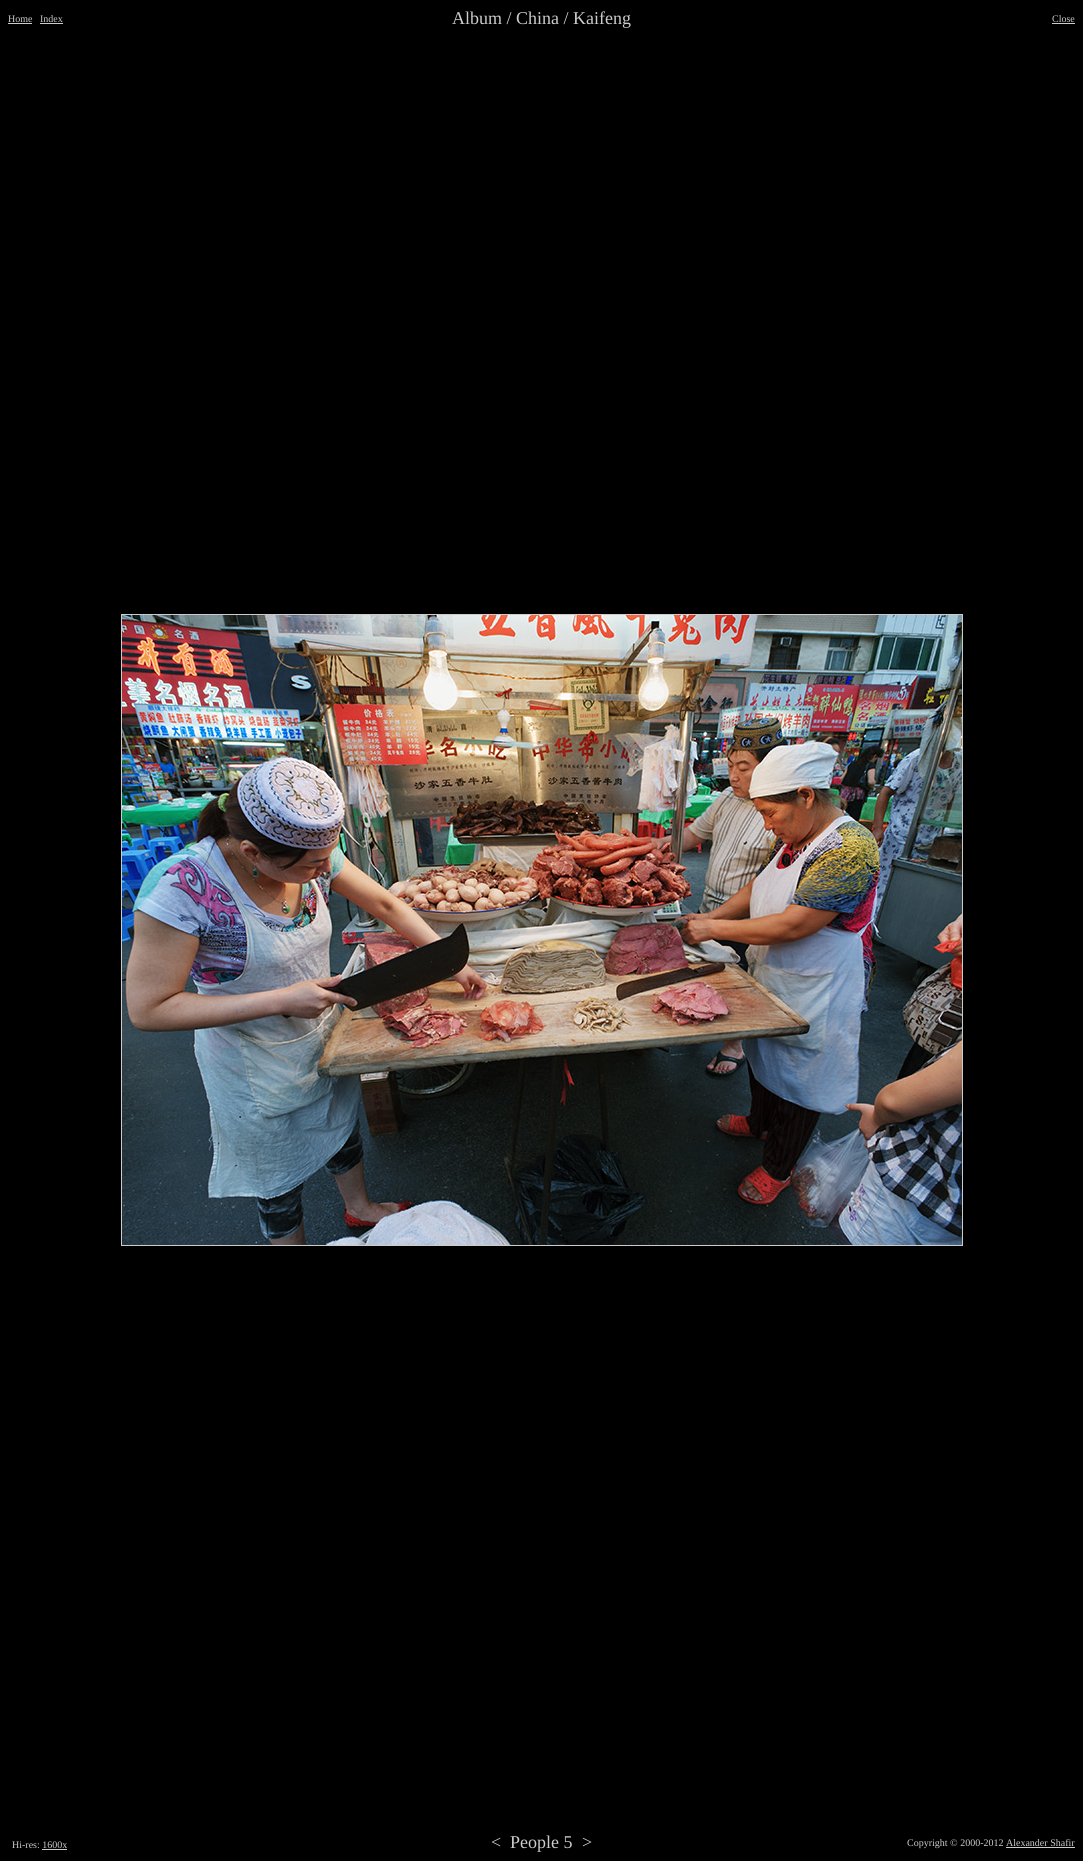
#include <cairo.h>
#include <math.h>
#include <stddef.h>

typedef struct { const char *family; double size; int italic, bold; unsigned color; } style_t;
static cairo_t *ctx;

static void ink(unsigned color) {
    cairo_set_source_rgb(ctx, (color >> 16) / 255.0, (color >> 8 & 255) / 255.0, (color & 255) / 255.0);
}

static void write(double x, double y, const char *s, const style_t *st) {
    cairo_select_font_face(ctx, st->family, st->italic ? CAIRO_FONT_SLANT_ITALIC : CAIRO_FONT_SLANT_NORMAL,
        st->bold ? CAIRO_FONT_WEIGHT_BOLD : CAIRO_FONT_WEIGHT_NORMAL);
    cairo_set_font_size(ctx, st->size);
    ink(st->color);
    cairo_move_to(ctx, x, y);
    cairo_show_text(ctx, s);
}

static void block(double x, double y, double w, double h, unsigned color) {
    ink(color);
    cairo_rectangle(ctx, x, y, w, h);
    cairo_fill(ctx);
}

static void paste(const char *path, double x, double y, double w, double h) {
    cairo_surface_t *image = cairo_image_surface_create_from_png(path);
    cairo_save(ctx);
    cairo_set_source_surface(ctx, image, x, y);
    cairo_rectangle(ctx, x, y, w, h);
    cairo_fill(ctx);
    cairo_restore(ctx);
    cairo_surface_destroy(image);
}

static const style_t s1 = {"Liberation Serif", 10, 0, 0, 0xcccccc};
static const style_t s2 = {"Liberation Serif", 18, 0, 0, 0xcccccc};

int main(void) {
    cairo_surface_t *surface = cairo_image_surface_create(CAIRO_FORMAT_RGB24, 1083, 1861);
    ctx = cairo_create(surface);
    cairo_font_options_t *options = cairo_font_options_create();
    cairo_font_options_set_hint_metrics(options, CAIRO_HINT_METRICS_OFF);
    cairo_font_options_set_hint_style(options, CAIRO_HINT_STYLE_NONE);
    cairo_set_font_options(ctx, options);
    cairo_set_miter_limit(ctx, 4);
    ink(0x000000);
    cairo_paint(ctx);
    write(8, 22, "Home", &s1);
    block(8, 23, 24, 1, 0xcccccc);
    write(40, 22, "Index", &s1);
    block(40, 23, 23, 1, 0xcccccc);
    write(452, 24, "Album / China / Kaifeng", &s2);
    write(1052, 22, "Close", &s1);
    block(1052, 23, 23, 1, 0xcccccc);
    cairo_rectangle(ctx, 121.5, 614.5, 841, 631);
    cairo_set_line_width(ctx, 1);
    cairo_stroke(ctx);
    paste("pic1.png", 122, 615, 840, 630);
    write(12, 1848, "Hi-res: 1600x", &s1);
    block(42, 1849, 25, 1, 0xcccccc);
    write(491, 1848, "<", &s2);
    write(510, 1848, "People 5", &s2);
    write(582, 1848, ">", &s2);
    write(907, 1846, "Copyright © 2000-2012 Alexander Shafir", &s1);
    block(1006, 1847, 69, 1, 0xcccccc);
    cairo_surface_write_to_png(surface, "screenshot.png");
    cairo_font_options_destroy(options);
    cairo_destroy(ctx);
    cairo_surface_destroy(surface);
    return 0;
}
